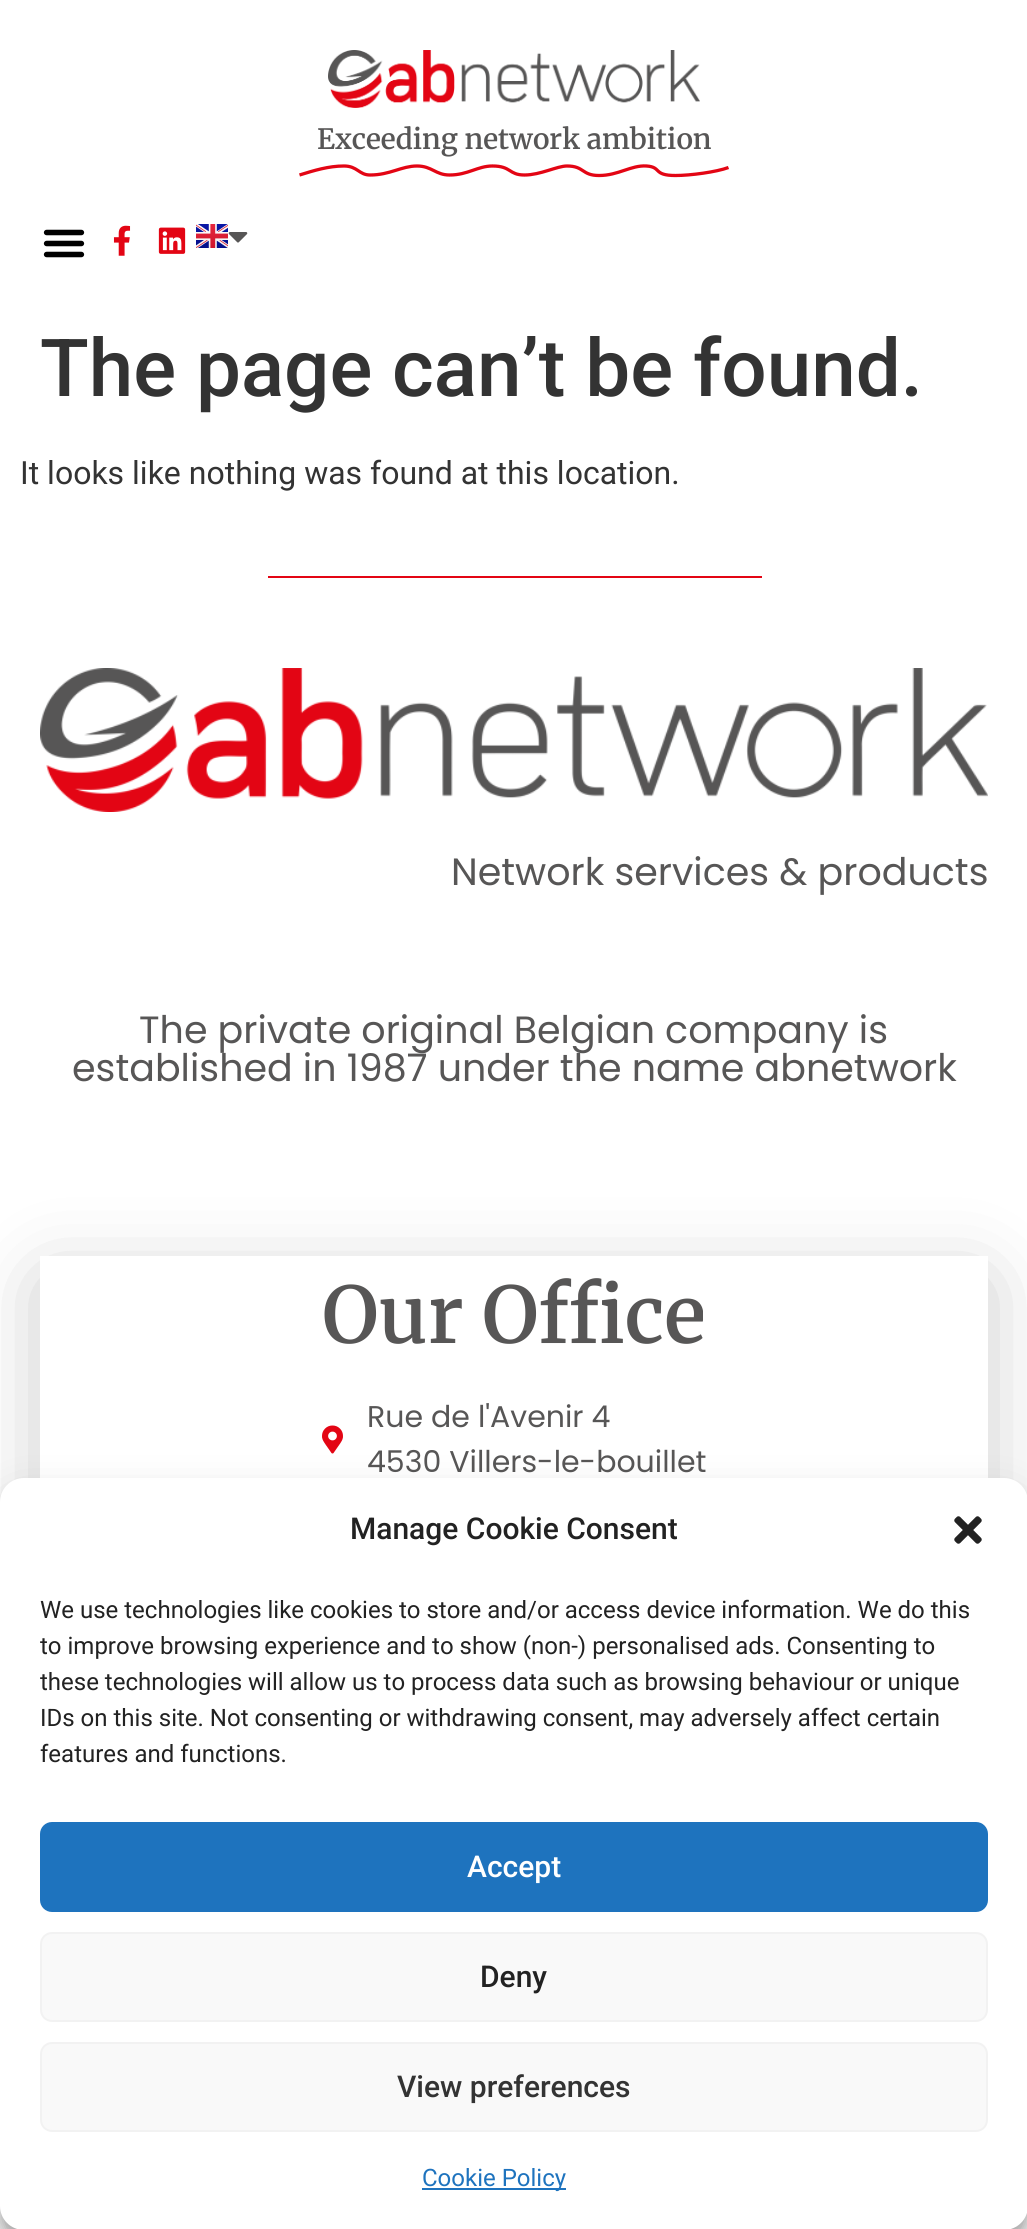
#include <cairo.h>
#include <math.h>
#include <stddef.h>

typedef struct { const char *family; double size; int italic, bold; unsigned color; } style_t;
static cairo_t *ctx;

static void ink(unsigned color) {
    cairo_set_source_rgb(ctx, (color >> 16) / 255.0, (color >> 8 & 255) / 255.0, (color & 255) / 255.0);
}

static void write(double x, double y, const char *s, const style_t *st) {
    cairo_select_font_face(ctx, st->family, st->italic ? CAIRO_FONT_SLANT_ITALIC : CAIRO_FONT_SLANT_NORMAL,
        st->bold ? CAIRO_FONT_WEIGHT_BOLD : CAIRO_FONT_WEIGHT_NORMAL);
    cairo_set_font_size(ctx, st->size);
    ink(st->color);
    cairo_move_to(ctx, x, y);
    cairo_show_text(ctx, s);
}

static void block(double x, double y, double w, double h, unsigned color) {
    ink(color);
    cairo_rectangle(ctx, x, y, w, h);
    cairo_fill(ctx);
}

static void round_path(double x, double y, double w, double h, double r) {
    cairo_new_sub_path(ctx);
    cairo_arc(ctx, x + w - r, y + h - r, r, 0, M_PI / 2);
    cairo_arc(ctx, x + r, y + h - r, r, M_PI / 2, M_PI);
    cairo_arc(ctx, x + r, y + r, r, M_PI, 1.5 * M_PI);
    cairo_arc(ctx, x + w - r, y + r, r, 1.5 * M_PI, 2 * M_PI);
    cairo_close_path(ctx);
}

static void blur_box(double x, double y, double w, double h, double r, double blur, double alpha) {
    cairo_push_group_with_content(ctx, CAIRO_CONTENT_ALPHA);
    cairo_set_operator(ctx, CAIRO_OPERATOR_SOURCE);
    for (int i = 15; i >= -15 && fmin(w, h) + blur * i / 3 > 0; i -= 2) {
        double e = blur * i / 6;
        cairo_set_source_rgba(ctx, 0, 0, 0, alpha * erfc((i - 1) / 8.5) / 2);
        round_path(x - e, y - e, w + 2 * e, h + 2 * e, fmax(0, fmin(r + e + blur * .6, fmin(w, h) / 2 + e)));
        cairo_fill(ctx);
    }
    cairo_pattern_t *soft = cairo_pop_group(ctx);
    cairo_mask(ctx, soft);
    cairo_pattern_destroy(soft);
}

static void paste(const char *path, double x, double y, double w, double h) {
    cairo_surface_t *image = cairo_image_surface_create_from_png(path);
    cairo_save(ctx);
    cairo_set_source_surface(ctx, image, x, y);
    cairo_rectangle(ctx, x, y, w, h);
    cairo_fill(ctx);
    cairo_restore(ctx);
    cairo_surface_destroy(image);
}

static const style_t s1 = {"Merriweather SemiBold", 28, 0, 0, 0x575656};
static const style_t s2 = {"Roboto Medium", 80, 0, 0, 0x333333};
static const style_t s3 = {"Roboto", 32, 0, 0, 0x333333};
static const style_t s4 = {"Poppins", 38, 0, 0, 0x575656};
static const style_t s5 = {"Merriweather SemiBold", 78, 0, 0, 0x575656};
static const style_t s6 = {"Poppins", 30, 0, 0, 0x575656};
static const style_t s7 = {"Roboto Medium", 30, 0, 0, 0x222222};
static const style_t s8 = {"Roboto", 24, 0, 0, 0x222222};
static const style_t s9 = {"Roboto Medium", 30, 0, 0, 0xffffff};
static const style_t s10 = {"Roboto Medium", 30, 0, 0, 0x333333};
static const style_t s11 = {"Roboto", 24, 0, 0, 0x1e73be};

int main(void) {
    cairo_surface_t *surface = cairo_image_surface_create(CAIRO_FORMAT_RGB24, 1027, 2229);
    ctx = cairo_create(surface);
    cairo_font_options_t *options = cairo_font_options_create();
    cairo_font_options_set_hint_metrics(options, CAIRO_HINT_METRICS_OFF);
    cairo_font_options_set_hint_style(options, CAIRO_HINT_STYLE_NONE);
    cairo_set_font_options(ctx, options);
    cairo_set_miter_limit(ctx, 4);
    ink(0xffffff);
    cairo_paint(ctx);
    paste("pic1.png", 328, 50, 372, 58);
    write(317, 149, "Exceeding network ambition", &s1);
    cairo_new_path(ctx);
    cairo_move_to(ctx, 299.5, 175);
    cairo_curve_to(ctx, 314, 170.5, 328.5, 166, 344, 166);
    cairo_curve_to(ctx, 357.5, 166, 359, 175, 370, 175);
    cairo_curve_to(ctx, 390, 175, 401.5, 166, 417, 166);
    cairo_curve_to(ctx, 432, 166, 435.5, 175, 449.5, 175);
    cairo_curve_to(ctx, 468, 175, 477.5, 166, 492.5, 166);
    cairo_curve_to(ctx, 511.5, 166, 508.5, 175, 524.5, 175);
    cairo_curve_to(ctx, 540.5, 175, 557, 166, 567, 166);
    cairo_curve_to(ctx, 584.5, 166, 581.5, 175.5, 599, 175.5);
    cairo_curve_to(ctx, 618.5, 175.5, 631, 165, 646.5, 166);
    cairo_curve_to(ctx, 662, 167, 652.5, 175.5, 675.5, 175.5);
    cairo_curve_to(ctx, 690.5, 175.5, 716.5, 172, 728.5, 167.5);
    ink(0xe30514);
    cairo_set_line_width(ctx, 3.3);
    cairo_stroke(ctx);
    paste("pic2.png", 43, 229, 42, 29);
    paste("pic3.png", 113, 225, 18, 31);
    paste("pic4.png", 158, 227, 28, 27);
    paste("pic5.png", 196, 224, 32, 24);
    paste("pic6.png", 228, 232, 20, 11);
    write(40, 396, "The page can’t be found.", &s2);
    write(20, 484, "It looks like nothing was found at this location.", &s3);
    block(268, 576, 494, 2, 0xe30514);
    paste("pic7.png", 40, 668, 948, 144);
    write(451, 885, "Network services & products", &s4);
    write(139, 1043, "The private original Belgian company is", &s4);
    write(72, 1081, "established in 1987 under the name abnetwork", &s4);
    cairo_save(ctx);
    cairo_set_fill_rule(ctx, CAIRO_FILL_RULE_EVEN_ODD);
    cairo_new_path(ctx);
    cairo_move_to(ctx, 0, 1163);
    cairo_line_to(ctx, 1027, 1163);
    cairo_line_to(ctx, 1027, 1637);
    cairo_line_to(ctx, 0, 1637);
    cairo_close_path(ctx);
    cairo_move_to(ctx, 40, 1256);
    cairo_line_to(ctx, 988, 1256);
    cairo_line_to(ctx, 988, 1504);
    cairo_line_to(ctx, 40, 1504);
    cairo_close_path(ctx);
    cairo_clip(ctx);
    ink(0x000000);
    blur_box(48, 1284, 932, 232, 0, 40, 0.25);
    cairo_restore(ctx);
    write(322, 1343, "Our Office", &s5);
    paste("pic8.png", 322, 1425, 21, 29);
    write(367, 1427, "Rue de l'Avenir 4", &s6);
    write(367, 1472, "4530 Villers-le-bouillet", &s6);
    ink(0x000000);
    blur_box(0, 1490, 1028, 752, 24, 6, 0.23);
    blur_box(0, 1498, 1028, 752, 24, 20, 0.19);
    ink(0xffffff);
    round_path(0, 1478, 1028, 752, 24);
    cairo_fill(ctx);
    write(350, 1539, "Manage Cookie Consent", &s7);
    paste("pic9.png", 954, 1516, 28, 28);
    write(40, 1618, "We use technologies like cookies to store and/or access device information. We do this", &s8);
    write(40, 1654, "to improve browsing experience and to show (non-) personalised ads. Consenting to", &s8);
    write(40, 1690, "these technologies will allow us to process data such as browsing behaviour or unique", &s8);
    write(40, 1726, "IDs on this site. Not consenting or withdrawing consent, may adversely affect certain", &s8);
    write(40, 1762, "features and functions.", &s8);
    ink(0x1e73be);
    round_path(41, 1823, 946, 88, 11);
    cairo_fill_preserve(ctx);
    cairo_set_line_width(ctx, 2);
    cairo_stroke(ctx);
    write(467, 1877, "Accept", &s9);
    ink(0xf9f9f9);
    round_path(41, 1933, 946, 88, 11);
    cairo_fill_preserve(ctx);
    ink(0xf2f2f2);
    cairo_stroke(ctx);
    write(480, 1987, "Deny", &s7);
    ink(0xf9f9f9);
    round_path(41, 2043, 946, 88, 11);
    cairo_fill_preserve(ctx);
    ink(0xf2f2f2);
    cairo_stroke(ctx);
    write(397, 2097, "View preferences", &s10);
    block(422, 2188, 144, 2, 0x1e73be);
    write(422, 2186, "Cookie Policy", &s11);
    cairo_surface_write_to_png(surface, "screenshot.png");
    cairo_font_options_destroy(options);
    cairo_destroy(ctx);
    cairo_surface_destroy(surface);
    return 0;
}
